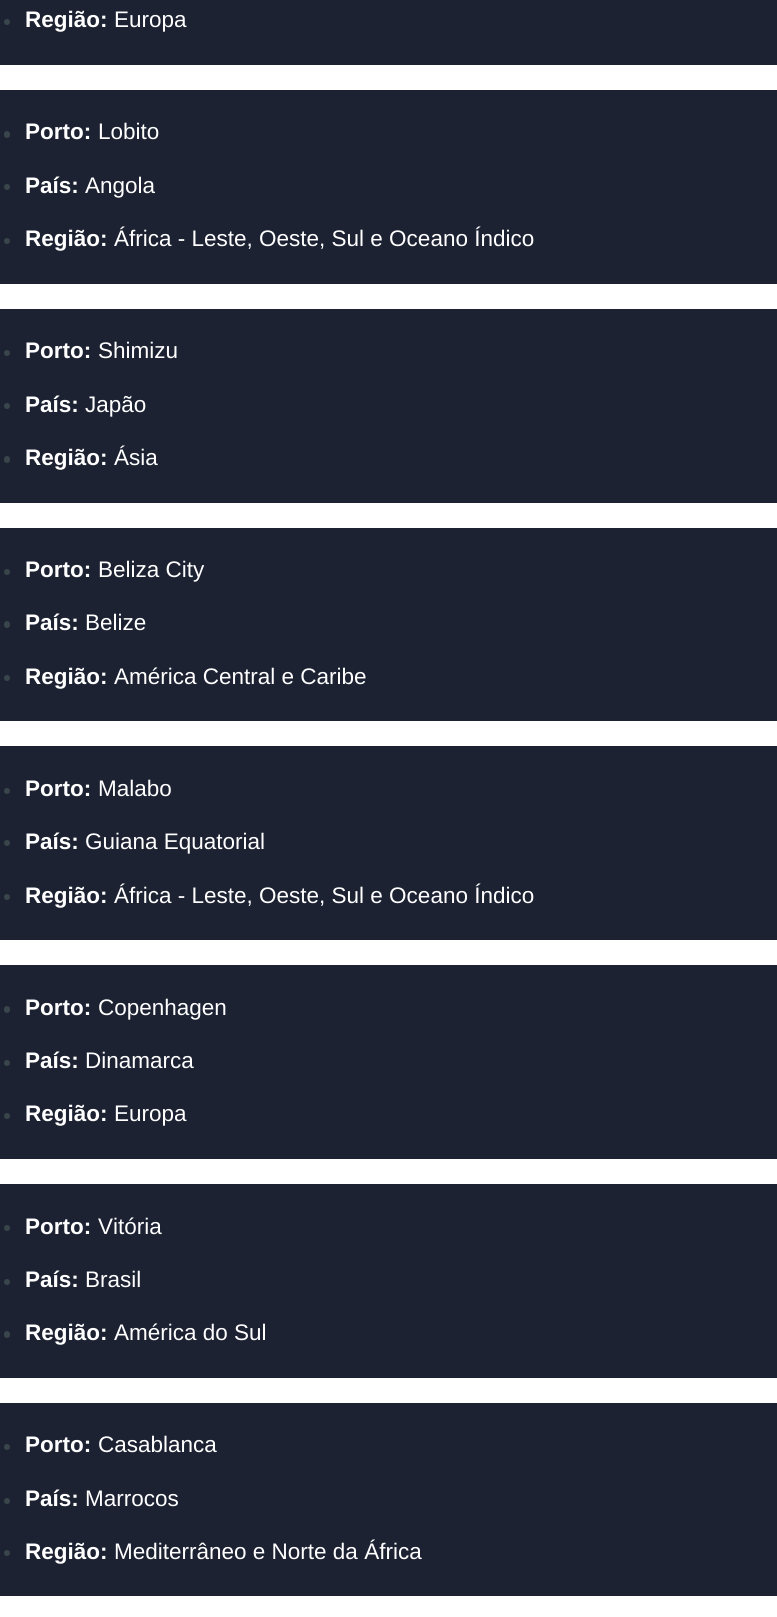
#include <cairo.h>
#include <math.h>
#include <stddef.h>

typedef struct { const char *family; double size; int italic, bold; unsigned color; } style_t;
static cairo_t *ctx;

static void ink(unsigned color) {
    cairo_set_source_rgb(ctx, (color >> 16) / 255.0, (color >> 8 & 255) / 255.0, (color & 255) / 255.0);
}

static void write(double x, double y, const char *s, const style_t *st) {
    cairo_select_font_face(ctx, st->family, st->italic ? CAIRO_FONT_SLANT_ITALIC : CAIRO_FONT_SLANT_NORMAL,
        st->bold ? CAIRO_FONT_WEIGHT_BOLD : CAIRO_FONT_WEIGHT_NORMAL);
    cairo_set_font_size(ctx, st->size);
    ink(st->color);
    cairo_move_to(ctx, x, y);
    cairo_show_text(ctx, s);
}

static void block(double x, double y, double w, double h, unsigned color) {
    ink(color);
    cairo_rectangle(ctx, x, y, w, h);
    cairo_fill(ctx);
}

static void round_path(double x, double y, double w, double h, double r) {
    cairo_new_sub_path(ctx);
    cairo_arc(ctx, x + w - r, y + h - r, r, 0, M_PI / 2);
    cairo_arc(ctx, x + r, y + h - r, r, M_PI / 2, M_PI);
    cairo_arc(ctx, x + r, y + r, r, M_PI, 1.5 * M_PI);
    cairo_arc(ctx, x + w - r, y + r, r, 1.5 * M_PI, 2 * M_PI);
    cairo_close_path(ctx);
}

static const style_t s1 = {"Liberation Sans", 22.5, 0, 1, 0xffffff};
static const style_t s2 = {"Liberation Sans", 22.5, 0, 0, 0xffffff};

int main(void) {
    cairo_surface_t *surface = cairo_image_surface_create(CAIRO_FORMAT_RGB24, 777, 1617);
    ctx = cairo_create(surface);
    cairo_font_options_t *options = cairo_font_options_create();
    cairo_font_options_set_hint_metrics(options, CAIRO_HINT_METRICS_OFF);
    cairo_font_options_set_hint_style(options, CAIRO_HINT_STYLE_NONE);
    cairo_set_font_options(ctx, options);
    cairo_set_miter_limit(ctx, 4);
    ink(0xffffff);
    cairo_paint(ctx);
    block(0, 0, 777, 65, 0x1d2233);
    ink(0x38454a);
    cairo_arc(ctx, 7, 22, 3, 0, 2 * M_PI);
    cairo_fill(ctx);
    write(25, 27, "Região:", &s1);
    write(114, 27, "Europa", &s2);
    block(0, 90, 777, 194, 0x1d2233);
    ink(0x38454a);
    round_path(4, 131, 6, 7, 3);
    cairo_fill(ctx);
    write(25, 139, "Porto:", &s1);
    write(98, 139, "Lobito", &s2);
    ink(0x38454a);
    cairo_new_path(ctx);
    cairo_arc(ctx, 7, 187, 3, 0, 2 * M_PI);
    cairo_fill(ctx);
    write(25, 193, "País:", &s1);
    write(85, 193, "Angola", &s2);
    ink(0x38454a);
    cairo_new_path(ctx);
    cairo_arc(ctx, 7, 241, 3, 0, 2 * M_PI);
    cairo_fill(ctx);
    write(25, 246, "Região:", &s1);
    write(114, 246, "África - Leste, Oeste, Sul e Oceano Índico", &s2);
    block(0, 309, 777, 194, 0x1d2233);
    ink(0x38454a);
    cairo_new_path(ctx);
    cairo_arc(ctx, 7, 353, 3, 0, 2 * M_PI);
    cairo_fill(ctx);
    write(25, 358, "Porto:", &s1);
    write(98, 358, "Shimizu", &s2);
    ink(0x38454a);
    cairo_new_path(ctx);
    cairo_arc(ctx, 7, 406, 3, 0, 2 * M_PI);
    cairo_fill(ctx);
    write(25, 412, "País:", &s1);
    write(85, 412, "Japão", &s2);
    ink(0x38454a);
    round_path(4, 456, 6, 7, 3);
    cairo_fill(ctx);
    write(25, 465, "Região:", &s1);
    write(114, 465, "Ásia", &s2);
    block(0, 528, 777, 193, 0x1d2233);
    ink(0x38454a);
    cairo_new_path(ctx);
    cairo_arc(ctx, 7, 572, 3, 0, 2 * M_PI);
    cairo_fill(ctx);
    write(25, 577, "Porto:", &s1);
    write(98, 577, "Beliza City", &s2);
    ink(0x38454a);
    round_path(4, 621, 6, 7, 3);
    cairo_fill(ctx);
    write(25, 630, "País:", &s1);
    write(85, 630, "Belize", &s2);
    ink(0x38454a);
    cairo_new_path(ctx);
    cairo_arc(ctx, 7, 678, 3, 0, 2 * M_PI);
    cairo_fill(ctx);
    write(25, 684, "Região:", &s1);
    write(114, 684, "América Central e Caribe", &s2);
    block(0, 746, 777, 194, 0x1d2233);
    ink(0x38454a);
    cairo_new_path(ctx);
    cairo_arc(ctx, 7, 791, 3, 0, 2 * M_PI);
    cairo_fill(ctx);
    write(25, 796, "Porto:", &s1);
    write(98, 796, "Malabo", &s2);
    ink(0x38454a);
    cairo_new_path(ctx);
    cairo_arc(ctx, 7, 843, 3, 0, 2 * M_PI);
    cairo_fill(ctx);
    write(25, 849, "País:", &s1);
    write(85, 849, "Guiana Equatorial", &s2);
    ink(0x38454a);
    cairo_new_path(ctx);
    cairo_arc(ctx, 7, 897, 3, 0, 2 * M_PI);
    cairo_fill(ctx);
    write(25, 903, "Região:", &s1);
    write(114, 903, "África - Leste, Oeste, Sul e Oceano Índico", &s2);
    block(0, 965, 777, 194, 0x1d2233);
    ink(0x38454a);
    round_path(4, 1006, 6, 7, 3);
    cairo_fill(ctx);
    write(25, 1015, "Porto:", &s1);
    write(98, 1015, "Copenhagen", &s2);
    ink(0x38454a);
    cairo_new_path(ctx);
    cairo_arc(ctx, 7, 1063, 3, 0, 2 * M_PI);
    cairo_fill(ctx);
    write(25, 1068, "País:", &s1);
    write(85, 1068, "Dinamarca", &s2);
    ink(0x38454a);
    cairo_new_path(ctx);
    cairo_arc(ctx, 7, 1116, 3, 0, 2 * M_PI);
    cairo_fill(ctx);
    write(25, 1121, "Região:", &s1);
    write(114, 1121, "Europa", &s2);
    block(0, 1184, 777, 194, 0x1d2233);
    ink(0x38454a);
    cairo_new_path(ctx);
    cairo_arc(ctx, 7, 1228, 3, 0, 2 * M_PI);
    cairo_fill(ctx);
    write(25, 1234, "Porto:", &s1);
    write(98, 1234, "Vitória", &s2);
    ink(0x38454a);
    cairo_new_path(ctx);
    cairo_arc(ctx, 7, 1282, 3, 0, 2 * M_PI);
    cairo_fill(ctx);
    write(25, 1287, "País:", &s1);
    write(85, 1287, "Brasil", &s2);
    ink(0x38454a);
    round_path(4, 1331, 6, 7, 3);
    cairo_fill(ctx);
    write(25, 1340, "Região:", &s1);
    write(114, 1340, "América do Sul", &s2);
    block(0, 1403, 777, 193, 0x1d2233);
    ink(0x38454a);
    cairo_new_path(ctx);
    cairo_arc(ctx, 7, 1447, 3, 0, 2 * M_PI);
    cairo_fill(ctx);
    write(25, 1452, "Porto:", &s1);
    write(98, 1452, "Casablanca", &s2);
    ink(0x38454a);
    cairo_new_path(ctx);
    cairo_arc(ctx, 7, 1501, 3, 0, 2 * M_PI);
    cairo_fill(ctx);
    write(25, 1506, "País:", &s1);
    write(85, 1506, "Marrocos", &s2);
    ink(0x38454a);
    cairo_new_path(ctx);
    cairo_arc(ctx, 7, 1553, 3, 0, 2 * M_PI);
    cairo_fill(ctx);
    write(25, 1559, "Região:", &s1);
    write(114, 1559, "Mediterrâneo e Norte da África", &s2);
    cairo_surface_write_to_png(surface, "screenshot.png");
    cairo_font_options_destroy(options);
    cairo_destroy(ctx);
    cairo_surface_destroy(surface);
    return 0;
}
